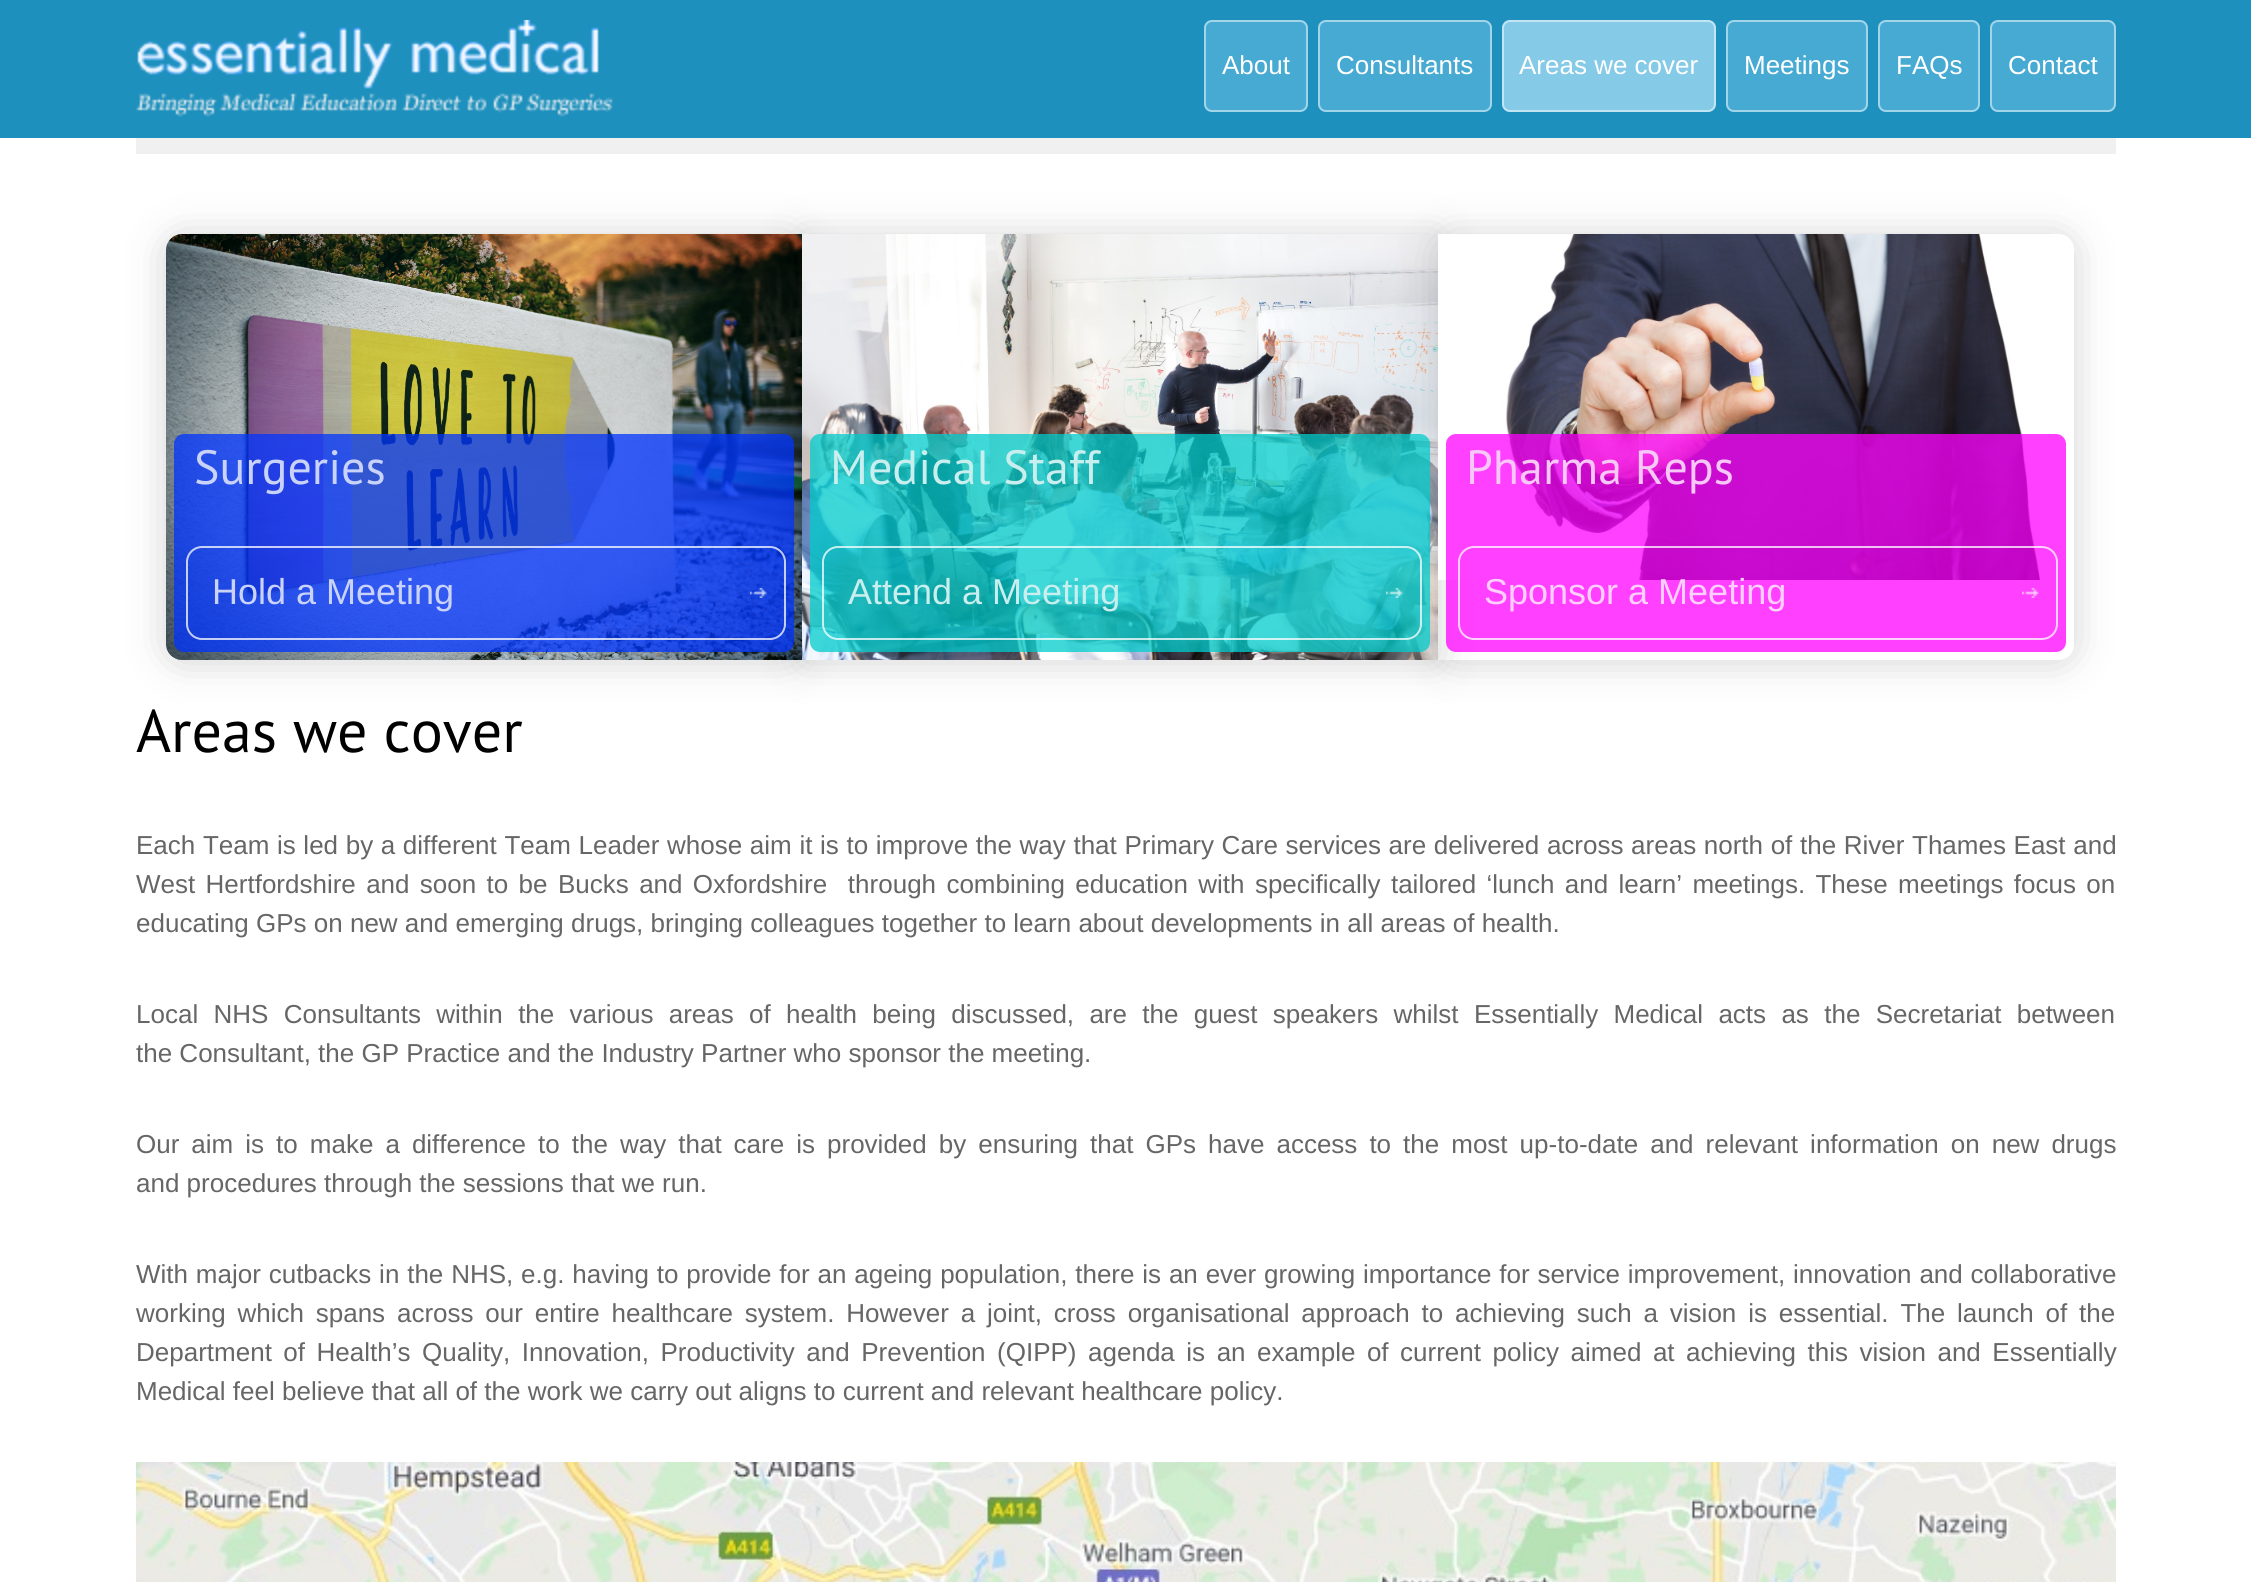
#include <cairo.h>
#include <math.h>
#include <stddef.h>

typedef struct { const char *family; double size; int italic, bold; unsigned color; } style_t;
static cairo_t *ctx;

static void ink(unsigned color) {
    cairo_set_source_rgb(ctx, (color >> 16) / 255.0, (color >> 8 & 255) / 255.0, (color & 255) / 255.0);
}

static void write(double x, double y, const char *s, const style_t *st) {
    cairo_select_font_face(ctx, st->family, st->italic ? CAIRO_FONT_SLANT_ITALIC : CAIRO_FONT_SLANT_NORMAL,
        st->bold ? CAIRO_FONT_WEIGHT_BOLD : CAIRO_FONT_WEIGHT_NORMAL);
    cairo_set_font_size(ctx, st->size);
    ink(st->color);
    cairo_move_to(ctx, x, y);
    cairo_show_text(ctx, s);
}

static void write_spaced(double x, double y, const char *s, double letter, double word) {
    cairo_move_to(ctx, x, y);
    while (*s) {
        char ch[5] = {0};
        int n = 0;
        do ch[n++] = *s++; while ((*s & 0xC0) == 0x80);
        cairo_show_text(ctx, ch);
        cairo_rel_move_to(ctx, letter + word * (*ch == ' '), 0);
    }
}

static void block(double x, double y, double w, double h, unsigned color) {
    ink(color);
    cairo_rectangle(ctx, x, y, w, h);
    cairo_fill(ctx);
}

static void round_path(double x, double y, double w, double h, double r) {
    cairo_new_sub_path(ctx);
    cairo_arc(ctx, x + w - r, y + h - r, r, 0, M_PI / 2);
    cairo_arc(ctx, x + r, y + h - r, r, M_PI / 2, M_PI);
    cairo_arc(ctx, x + r, y + r, r, M_PI, 1.5 * M_PI);
    cairo_arc(ctx, x + w - r, y + r, r, 1.5 * M_PI, 2 * M_PI);
    cairo_close_path(ctx);
}

static void blur_box(double x, double y, double w, double h, double r, double blur, double alpha) {
    cairo_push_group_with_content(ctx, CAIRO_CONTENT_ALPHA);
    cairo_set_operator(ctx, CAIRO_OPERATOR_SOURCE);
    for (int i = 15; i >= -15 && fmin(w, h) + blur * i / 3 > 0; i -= 2) {
        double e = blur * i / 6;
        cairo_set_source_rgba(ctx, 0, 0, 0, alpha * erfc((i - 1) / 8.5) / 2);
        round_path(x - e, y - e, w + 2 * e, h + 2 * e, fmax(0, fmin(r + e + blur * .6, fmin(w, h) / 2 + e)));
        cairo_fill(ctx);
    }
    cairo_pattern_t *soft = cairo_pop_group(ctx);
    cairo_mask(ctx, soft);
    cairo_pattern_destroy(soft);
}

static void paste(const char *path, double x, double y, double w, double h) {
    cairo_surface_t *image = cairo_image_surface_create_from_png(path);
    cairo_save(ctx);
    cairo_set_source_surface(ctx, image, x, y);
    cairo_rectangle(ctx, x, y, w, h);
    cairo_fill(ctx);
    cairo_restore(ctx);
    cairo_surface_destroy(image);
}

static const style_t s1 = {"Liberation Sans", 26, 0, 0, 0xffffff};
static const style_t s2 = {"PT Sans", 48, 0, 0, 0xc9d3fa};
static const style_t s3 = {"Liberation Sans", 36, 0, 0, 0xc9d3fa};
static const style_t s4 = {"PT Sans", 48, 0, 0, 0xc8eeee};
static const style_t s5 = {"Liberation Sans", 36, 0, 0, 0xc8eeee};
static const style_t s6 = {"PT Sans", 48, 0, 0, 0xf7c7f7};
static const style_t s7 = {"Liberation Sans", 36, 0, 0, 0xffcfff};
static const style_t s8 = {"PT Sans", 60, 0, 0, 0x000000};
static const style_t s9 = {"Liberation Sans", 26, 0, 0, 0x666666};

int main(void) {
    cairo_surface_t *surface = cairo_image_surface_create(CAIRO_FORMAT_RGB24, 2251, 1582);
    ctx = cairo_create(surface);
    cairo_font_options_t *options = cairo_font_options_create();
    cairo_font_options_set_hint_metrics(options, CAIRO_HINT_METRICS_OFF);
    cairo_font_options_set_hint_style(options, CAIRO_HINT_STYLE_NONE);
    cairo_set_font_options(ctx, options);
    cairo_set_miter_limit(ctx, 4);
    ink(0xffffff);
    cairo_paint(ctx);
    block(0, 0, 2251, 138, 0x1e90bd);
    paste("pic1.png", 136, 20, 477, 97);
    ink(0x47aad3);
    round_path(1204, 20, 104, 92, 8);
    cairo_fill(ctx);
    round_path(1205, 21, 102, 90, 7);
    cairo_set_source_rgba(ctx, 1, 1, 1, 0.5);
    cairo_stroke(ctx);
    write(1222, 74, "About", &s1);
    ink(0x47aad3);
    round_path(1318, 20, 174, 92, 8);
    cairo_fill(ctx);
    round_path(1319, 21, 172, 90, 7);
    cairo_set_source_rgba(ctx, 1, 1, 1, 0.5);
    cairo_stroke(ctx);
    write(1336, 74, "Consultants", &s1);
    ink(0x85cae7);
    round_path(1502, 20, 214, 92, 8);
    cairo_fill(ctx);
    round_path(1503, 21, 212, 90, 7);
    cairo_set_source_rgba(ctx, 1, 1, 1, 0.5);
    cairo_stroke(ctx);
    write(1519, 74, "Areas we cover", &s1);
    ink(0x47aad3);
    round_path(1726, 20, 142, 92, 8);
    cairo_fill(ctx);
    round_path(1727, 21, 140, 90, 7);
    cairo_set_source_rgba(ctx, 1, 1, 1, 0.5);
    cairo_stroke(ctx);
    write(1744, 74, "Meetings", &s1);
    ink(0x47aad3);
    round_path(1878, 20, 102, 92, 8);
    cairo_fill(ctx);
    round_path(1879, 21, 100, 90, 7);
    cairo_set_source_rgba(ctx, 1, 1, 1, 0.5);
    cairo_stroke(ctx);
    write(1896, 74, "FAQs", &s1);
    ink(0x47aad3);
    round_path(1990, 20, 126, 92, 8);
    cairo_fill(ctx);
    round_path(1991, 21, 124, 90, 7);
    cairo_set_source_rgba(ctx, 1, 1, 1, 0.5);
    cairo_stroke(ctx);
    write(2008, 74, "Contact", &s1);
    block(136, 138, 1980, 16, 0xf0f0f0);
    ink(0x000000);
    blur_box(166, 236, 636, 426, 16, 20, 0.17);
    paste("pic2.png", 166, 234, 636, 426);
    blur_box(802, 236, 636, 426, 0, 20, 0.17);
    cairo_set_source_rgba(ctx, 0, 0.2, 1, 0.75);
    round_path(174, 434, 620, 218, 10);
    cairo_fill(ctx);
    write(194, 484, "Surgeries", &s2);
    paste("pic3.png", 750, 588, 17, 10);
    round_path(187, 547, 598, 92, 15);
    cairo_set_source_rgba(ctx, 1, 1, 1, 0.75);
    cairo_stroke(ctx);
    write(212, 604, "Hold a Meeting", &s3);
    paste("pic4.png", 802, 234, 636, 426);
    cairo_save(ctx);
    cairo_set_fill_rule(ctx, CAIRO_FILL_RULE_EVEN_ODD);
    cairo_new_path(ctx);
    cairo_move_to(ctx, 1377, 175);
    cairo_line_to(ctx, 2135, 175);
    cairo_line_to(ctx, 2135, 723);
    cairo_line_to(ctx, 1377, 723);
    cairo_close_path(ctx);
    cairo_move_to(ctx, 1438, 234);
    cairo_line_to(ctx, 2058, 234);
    cairo_curve_to(ctx, 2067, 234, 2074, 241, 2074, 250);
    cairo_line_to(ctx, 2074, 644);
    cairo_curve_to(ctx, 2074, 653, 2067, 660, 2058, 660);
    cairo_line_to(ctx, 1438, 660);
    cairo_close_path(ctx);
    cairo_clip(ctx);
    ink(0x000000);
    blur_box(1438, 236, 636, 426, 16, 20, 0.17);
    cairo_restore(ctx);
    cairo_set_source_rgba(ctx, 0, 0.8, 0.8, 0.75);
    round_path(810, 434, 620, 218, 10);
    cairo_fill(ctx);
    write(830, 484, "Medical Staff", &s4);
    paste("pic5.png", 1386, 588, 17, 10);
    round_path(823, 547, 598, 92, 15);
    cairo_set_source_rgba(ctx, 1, 1, 1, 0.75);
    cairo_stroke(ctx);
    write(848, 604, "Attend a Meeting", &s5);
    paste("pic6.png", 1438, 234, 603, 346);
    cairo_set_source_rgba(ctx, 1, 0, 1, 0.75);
    round_path(1446, 434, 620, 218, 10);
    cairo_fill(ctx);
    write(1466, 484, "Pharma Reps", &s6);
    paste("pic7.png", 2022, 588, 17, 10);
    round_path(1459, 547, 598, 92, 15);
    cairo_set_source_rgba(ctx, 1, 1, 1, 0.75);
    cairo_stroke(ctx);
    write(1484, 604, "Sponsor a Meeting", &s7);
    write(136, 752, "Areas we cover", &s8);
    cairo_select_font_face(ctx, "Liberation Sans", CAIRO_FONT_SLANT_NORMAL, CAIRO_FONT_WEIGHT_NORMAL);
    cairo_set_font_size(ctx, 26);
    ink(0x666666);
    write_spaced(136, 854, "Each Team is led by a different Team Leader whose aim it is to improve the way that Primary Care services are delivered across areas north of the River Thames East and", 0, 0.4);
    write_spaced(136, 893, "West Hertfordshire and soon to be", 0, 3.1);
    write_spaced(558, 893, "Bucks and Oxfordshire  through combining education with specifically tailored ‘lunch and learn’ meetings. These meetings focus on", 0, 3.1);
    write(136, 932, "educating GPs on new and emerging drugs, bringing colleagues together to learn about developments in all areas of health.", &s9);
    write_spaced(136, 1023, "Local NHS Consultants within the various areas of health being discussed, are the guest speakers whilst Essentially Medical acts as the Secretariat between", 0, 8.1);
    write(136, 1062, "the Consultant, the GP Practice and the Industry Partner who sponsor the meeting.", &s9);
    write_spaced(136, 1153, "Our aim is to make a difference to the way that care is provided by ensuring that GPs have access to the most up-to-date and relevant information on new drugs", 0, 4.8);
    write(136, 1192, "and procedures through the sessions that we run.", &s9);
    write_spaced(136, 1283, "With major cutbacks in the NHS, e.g. having to provide for an ageing population, there is an ever growing importance for service improvement, innovation and collaborative", 0, 0.6);
    write_spaced(136, 1322, "working which spans across our entire healthcare system. However a joint, cross organisational approach to achieving such a vision is essential. The launch of the", 0, 4.6);
    write_spaced(136, 1361, "Department of Health’s Quality, Innovation, Productivity and Prevention (QIPP) agenda is an example of current policy aimed at achieving this vision and Essentially", 0, 4.3);
    write(136, 1400, "Medical feel believe that all of the work we carry out aligns to current and relevant healthcare policy.", &s9);
    paste("pic8.png", 136, 1462, 1980, 120);
    cairo_surface_write_to_png(surface, "screenshot.png");
    cairo_font_options_destroy(options);
    cairo_destroy(ctx);
    cairo_surface_destroy(surface);
    return 0;
}
